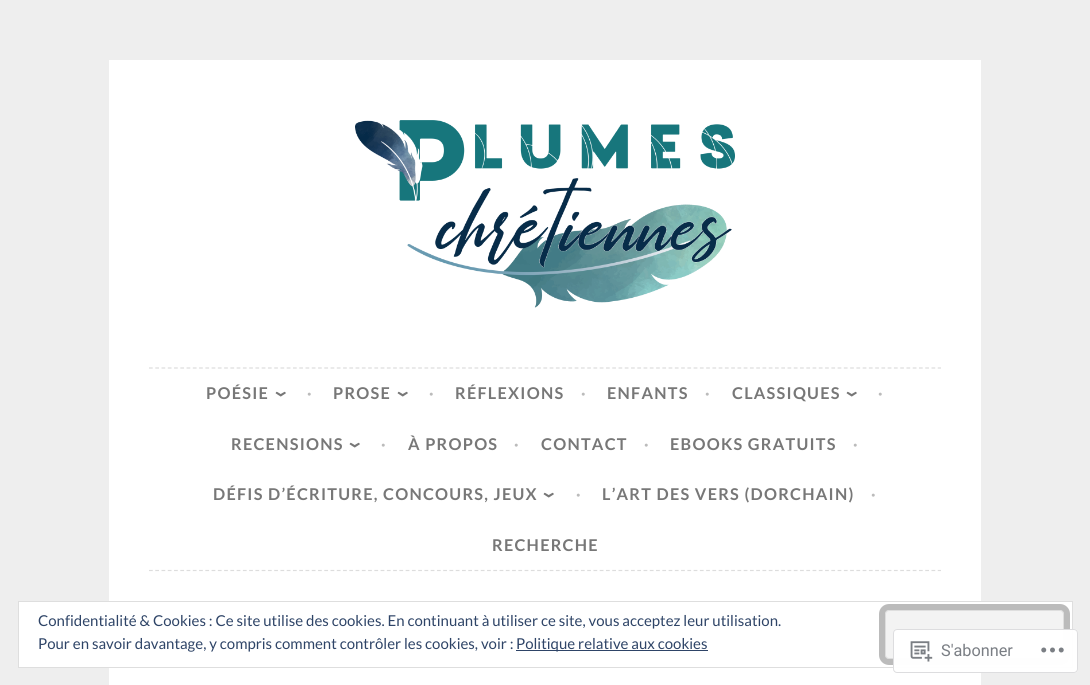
#include <cairo.h>
#include <math.h>
#include <stddef.h>

typedef struct { const char *family; double size; int italic, bold; unsigned color; } style_t;
static cairo_t *ctx;

static void ink(unsigned color) {
    cairo_set_source_rgb(ctx, (color >> 16) / 255.0, (color >> 8 & 255) / 255.0, (color & 255) / 255.0);
}

static void write(double x, double y, const char *s, const style_t *st) {
    cairo_select_font_face(ctx, st->family, st->italic ? CAIRO_FONT_SLANT_ITALIC : CAIRO_FONT_SLANT_NORMAL,
        st->bold ? CAIRO_FONT_WEIGHT_BOLD : CAIRO_FONT_WEIGHT_NORMAL);
    cairo_set_font_size(ctx, st->size);
    ink(st->color);
    cairo_move_to(ctx, x, y);
    cairo_show_text(ctx, s);
}

static void write_spaced(double x, double y, const char *s, double letter, double word) {
    cairo_move_to(ctx, x, y);
    while (*s) {
        char ch[5] = {0};
        int n = 0;
        do ch[n++] = *s++; while ((*s & 0xC0) == 0x80);
        cairo_show_text(ctx, ch);
        cairo_rel_move_to(ctx, letter + word * (*ch == ' '), 0);
    }
}

static void block(double x, double y, double w, double h, unsigned color) {
    ink(color);
    cairo_rectangle(ctx, x, y, w, h);
    cairo_fill(ctx);
}

static void round_path(double x, double y, double w, double h, double r) {
    cairo_new_sub_path(ctx);
    cairo_arc(ctx, x + w - r, y + h - r, r, 0, M_PI / 2);
    cairo_arc(ctx, x + r, y + h - r, r, M_PI / 2, M_PI);
    cairo_arc(ctx, x + r, y + r, r, M_PI, 1.5 * M_PI);
    cairo_arc(ctx, x + w - r, y + r, r, 1.5 * M_PI, 2 * M_PI);
    cairo_close_path(ctx);
}

static void paste(const char *path, double x, double y, double w, double h) {
    cairo_surface_t *image = cairo_image_surface_create_from_png(path);
    cairo_save(ctx);
    cairo_set_source_surface(ctx, image, x, y);
    cairo_rectangle(ctx, x, y, w, h);
    cairo_fill(ctx);
    cairo_restore(ctx);
    cairo_surface_destroy(image);
}

static const style_t s1 = {"Lato", 15, 0, 0, 0x2e4467};
static const style_t s2 = {"Roboto", 16.25, 0, 0, 0x7a7e84};

int main(void) {
    cairo_surface_t *surface = cairo_image_surface_create(CAIRO_FORMAT_RGB24, 1090, 685);
    ctx = cairo_create(surface);
    cairo_font_options_t *options = cairo_font_options_create();
    cairo_font_options_set_hint_metrics(options, CAIRO_HINT_METRICS_OFF);
    cairo_font_options_set_hint_style(options, CAIRO_HINT_STYLE_NONE);
    cairo_set_font_options(ctx, options);
    cairo_set_miter_limit(ctx, 4);
    ink(0xeeeeee);
    cairo_paint(ctx);
    block(109, 60, 872, 625, 0xffffff);
    paste("pic1.png", 355, 120, 380, 188);
    cairo_new_path(ctx);
    cairo_move_to(ctx, 149, 368);
    cairo_line_to(ctx, 941, 368);
    ink(0xdddddd);
    cairo_set_line_width(ctx, 1.2);
    cairo_set_dash(ctx, (double[]){3.75, 2.51}, 2, 0);
    cairo_stroke(ctx);
    cairo_new_path(ctx);
    cairo_move_to(ctx, 149, 570.5);
    cairo_line_to(ctx, 941, 570.5);
    cairo_stroke(ctx);
    cairo_select_font_face(ctx, "Lato", CAIRO_FONT_SLANT_NORMAL, CAIRO_FONT_WEIGHT_BOLD);
    cairo_set_font_size(ctx, 16.25);
    ink(0x777777);
    write_spaced(206, 399, "POÉSIE", 1.25, 0);
    cairo_set_font_size(ctx, 25);
    cairo_save(ctx);
    cairo_translate(ctx, 274, 390);
    cairo_rotate(ctx, 90 * M_PI / 180);
    write_spaced(0, 0, "›", 1.25, 0);
    cairo_restore(ctx);
    cairo_set_font_size(ctx, 16.25);
    ink(0xbbbbbb);
    write_spaced(307, 399, "·", 1.25, 0);
    ink(0x777777);
    write_spaced(333, 399, "PROSE", 1.25, 0);
    cairo_set_font_size(ctx, 25);
    cairo_save(ctx);
    cairo_translate(ctx, 396, 390);
    cairo_rotate(ctx, 90 * M_PI / 180);
    write_spaced(0, 0, "›", 1.25, 0);
    cairo_restore(ctx);
    cairo_set_font_size(ctx, 16.25);
    ink(0xbbbbbb);
    write_spaced(429, 399, "·", 1.25, 0);
    ink(0x777777);
    write_spaced(455, 399, "RÉFLEXIONS", 1.25, 0);
    ink(0xbbbbbb);
    write_spaced(581, 399, "·", 1.25, 0);
    ink(0x777777);
    write_spaced(607, 399, "ENFANTS", 1.25, 0);
    ink(0xbbbbbb);
    write_spaced(705, 399, "·", 1.25, 0);
    ink(0x777777);
    write_spaced(732, 399, "CLASSIQUES", 1.25, 0);
    cairo_set_font_size(ctx, 25);
    cairo_save(ctx);
    cairo_translate(ctx, 845, 390);
    cairo_rotate(ctx, 90 * M_PI / 180);
    write_spaced(0, 0, "›", 1.25, 0);
    cairo_restore(ctx);
    cairo_set_font_size(ctx, 16.25);
    ink(0xbbbbbb);
    write_spaced(878, 399, "·", 1.25, 0);
    ink(0x777777);
    write_spaced(231, 450, "RECENSIONS", 1.25, 0);
    cairo_set_font_size(ctx, 25);
    cairo_save(ctx);
    cairo_translate(ctx, 348, 441);
    cairo_rotate(ctx, 90 * M_PI / 180);
    write_spaced(0, 0, "›", 1.25, 0);
    cairo_restore(ctx);
    cairo_set_font_size(ctx, 16.25);
    ink(0xbbbbbb);
    write_spaced(381, 450, "·", 1.25, 0);
    ink(0x777777);
    write_spaced(408, 450, "À PROPOS", 1.25, 0);
    ink(0xbbbbbb);
    write_spaced(514, 450, "·", 1.25, 0);
    ink(0x777777);
    write_spaced(541, 450, "CONTACT", 1.25, 0);
    ink(0xbbbbbb);
    write_spaced(644, 450, "·", 1.25, 0);
    ink(0x777777);
    write_spaced(670, 450, "EBOOKS GRATUITS", 1.25, 0);
    ink(0xbbbbbb);
    write_spaced(853, 450, "·", 1.25, 0);
    ink(0x777777);
    write_spaced(213, 500, "DÉFIS D’ÉCRITURE, CONCOURS, JEUX", 1.25, 0);
    cairo_set_font_size(ctx, 25);
    cairo_save(ctx);
    cairo_translate(ctx, 542, 491);
    cairo_rotate(ctx, 90 * M_PI / 180);
    write_spaced(0, 0, "›", 1.25, 0);
    cairo_restore(ctx);
    cairo_set_font_size(ctx, 16.25);
    ink(0xbbbbbb);
    write_spaced(576, 500, "·", 1.25, 0);
    ink(0x777777);
    write_spaced(602, 500, "L’ART DES VERS (DORCHAIN)", 1.25, 0);
    ink(0xbbbbbb);
    write_spaced(871, 500, "·", 1.25, 0);
    ink(0x777777);
    write_spaced(492, 551, "RECHERCHE", 1.25, 0);
    ink(0xffffff);
    cairo_rectangle(ctx, 18.5, 601.5, 1054, 66);
    cairo_fill_preserve(ctx);
    ink(0xdedede);
    cairo_set_line_width(ctx, 1);
    cairo_set_dash(ctx, NULL, 0, 0);
    cairo_stroke(ctx);
    write(38, 626, "Confidentialité & Cookies : Ce site utilise des cookies. En continuant à utiliser ce site, vous acceptez leur utilisation.", &s1);
    ink(0xf3f3f3);
    round_path(885.5, 610.5, 178, 48, 3.5);
    cairo_fill_preserve(ctx);
    ink(0xdedede);
    cairo_stroke(ctx);
    round_path(882, 607, 185, 55, 7);
    ink(0xbbbbbb);
    cairo_set_line_width(ctx, 6);
    cairo_stroke(ctx);
    write(38, 649, "Pour en savoir davantage, y compris comment contrôler les cookies, voir :", &s1);
    block(516, 650, 192, 1, 0x2e4467);
    write(516, 649, "Politique relative aux cookies", &s1);
    cairo_set_source_rgba(ctx, 1, 1, 1, 0.98);
    round_path(893, 629, 185, 44, 4);
    cairo_fill(ctx);
    round_path(893.5, 629.5, 184, 43, 3.5);
    cairo_set_source_rgba(ctx, 0.863, 0.863, 0.871, 0.98);
    cairo_set_line_width(ctx, 1);
    cairo_stroke(ctx);
    paste("pic2.png", 910, 641, 23, 21);
    write(941, 656, "S'abonner", &s2);
    paste("pic3.png", 1041, 647, 23, 6);
    cairo_surface_write_to_png(surface, "screenshot.png");
    cairo_font_options_destroy(options);
    cairo_destroy(ctx);
    cairo_surface_destroy(surface);
    return 0;
}
